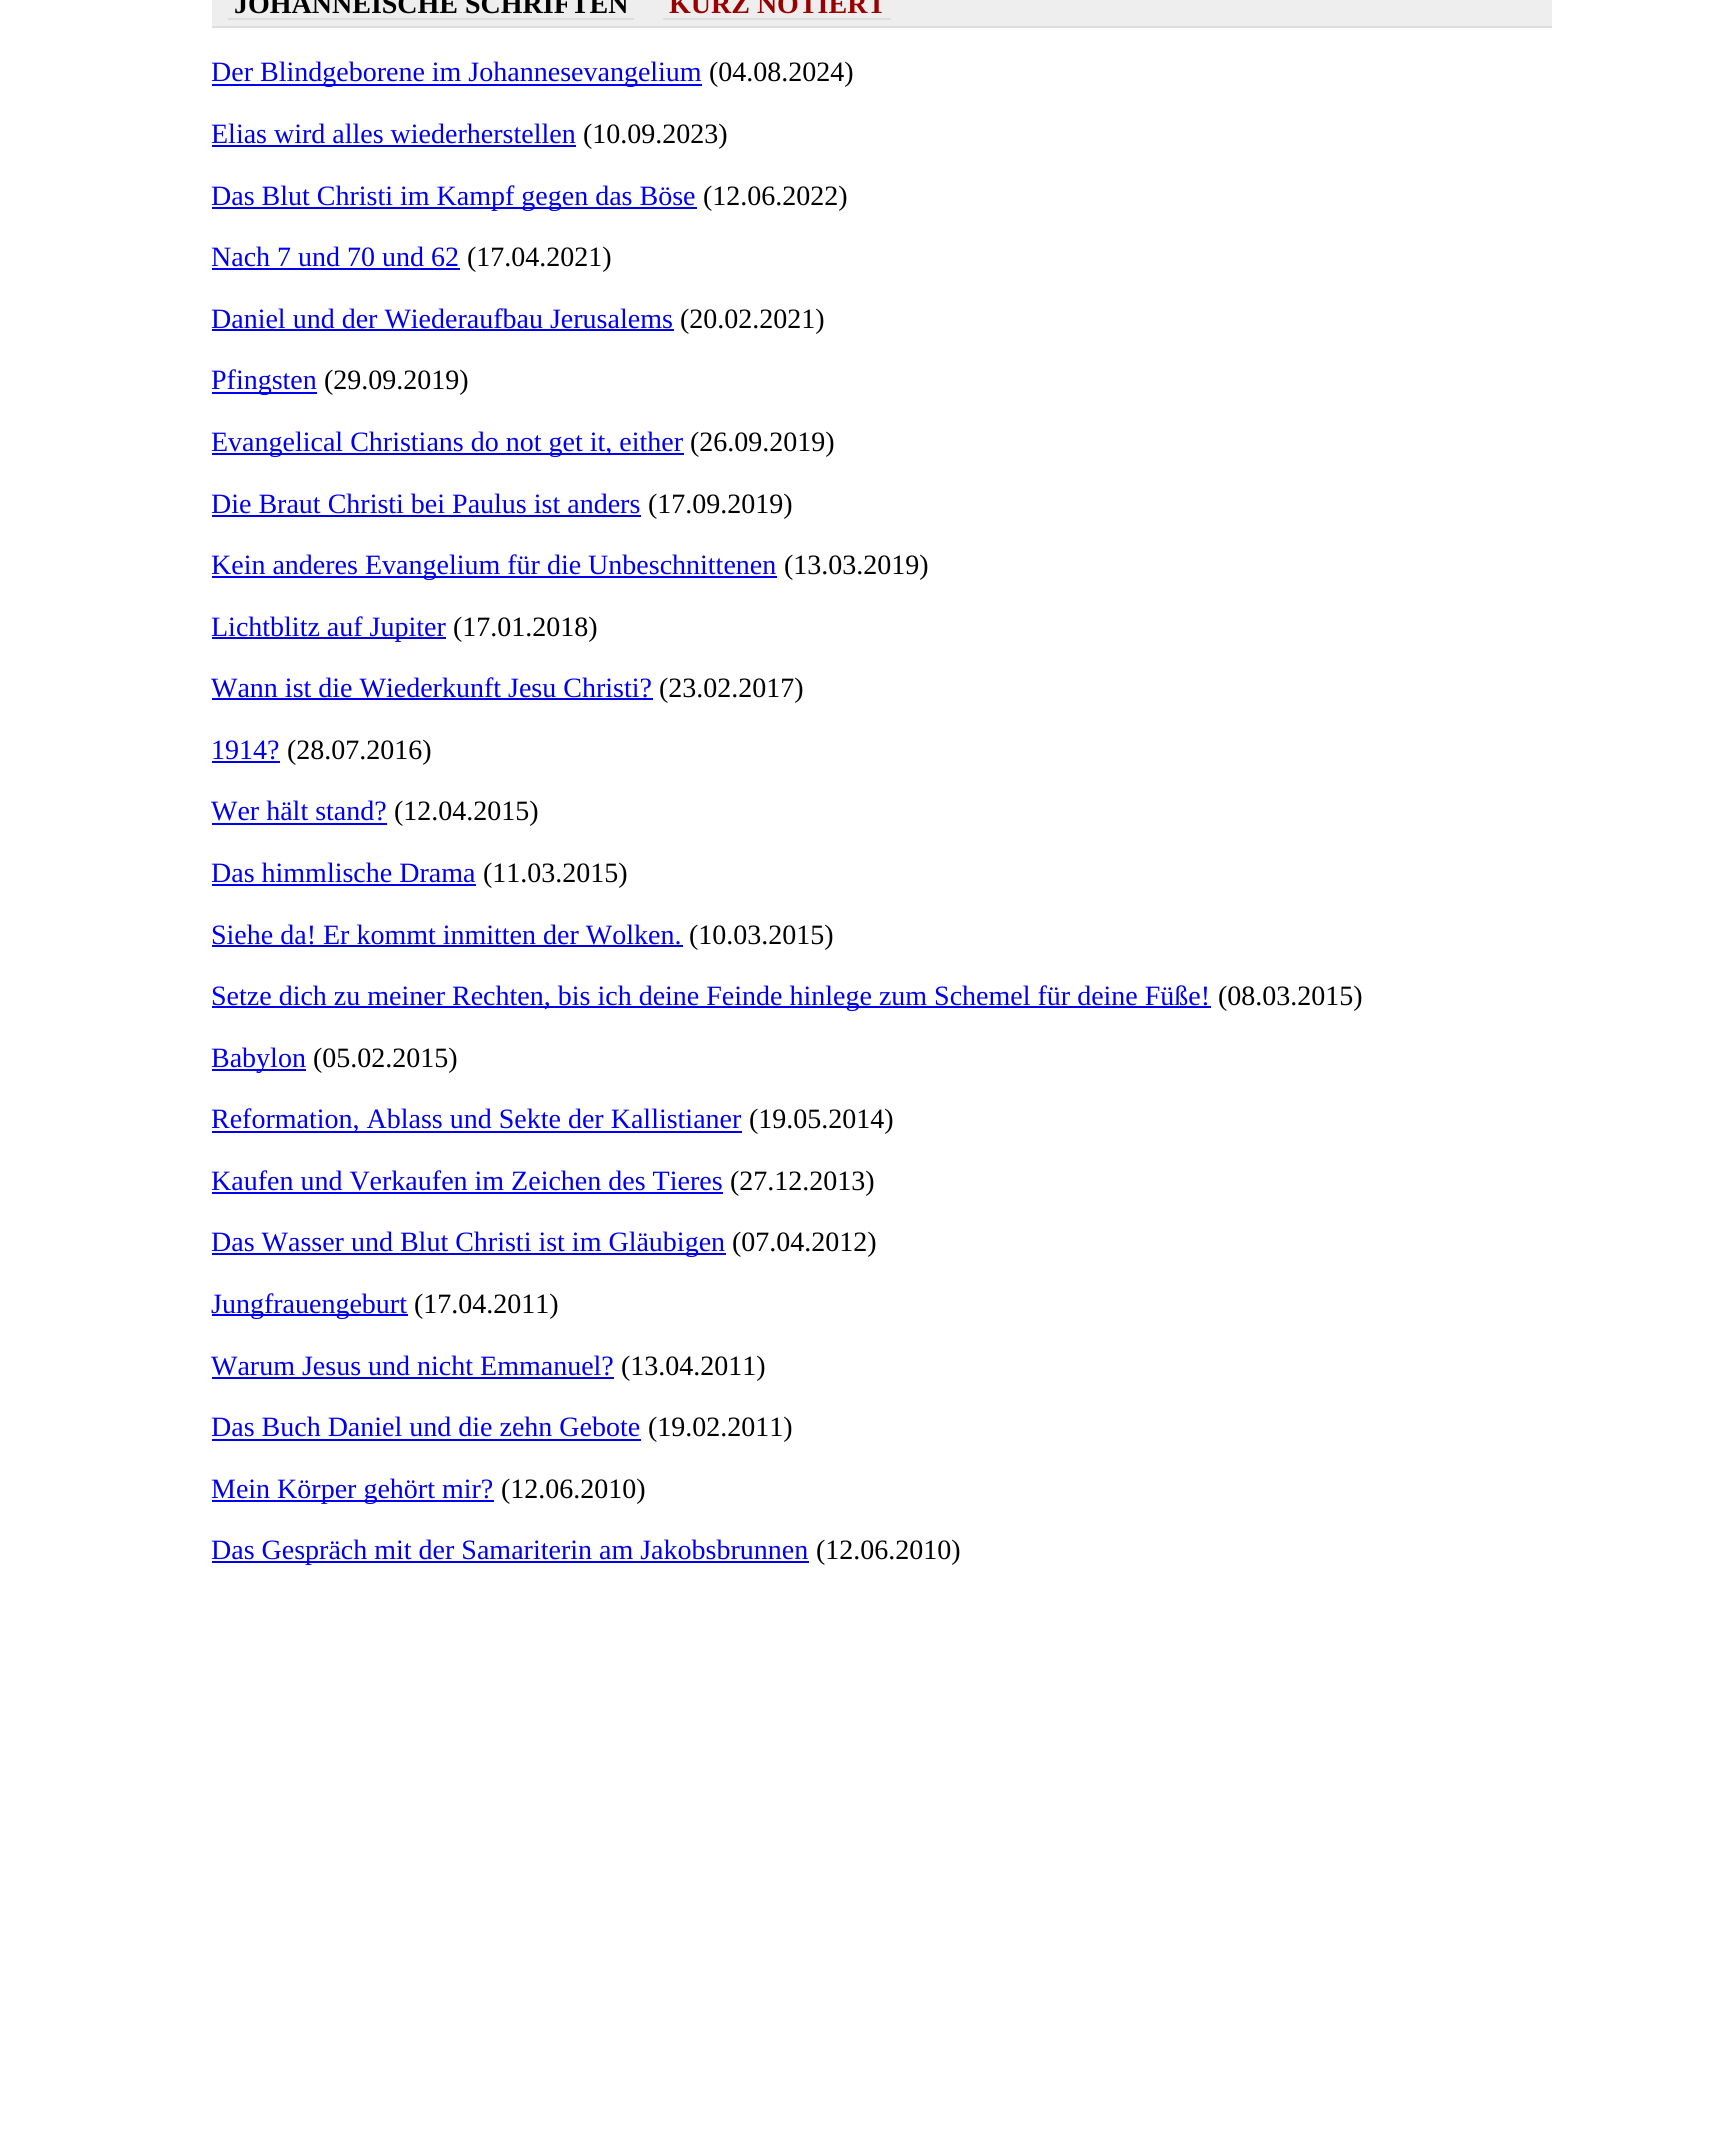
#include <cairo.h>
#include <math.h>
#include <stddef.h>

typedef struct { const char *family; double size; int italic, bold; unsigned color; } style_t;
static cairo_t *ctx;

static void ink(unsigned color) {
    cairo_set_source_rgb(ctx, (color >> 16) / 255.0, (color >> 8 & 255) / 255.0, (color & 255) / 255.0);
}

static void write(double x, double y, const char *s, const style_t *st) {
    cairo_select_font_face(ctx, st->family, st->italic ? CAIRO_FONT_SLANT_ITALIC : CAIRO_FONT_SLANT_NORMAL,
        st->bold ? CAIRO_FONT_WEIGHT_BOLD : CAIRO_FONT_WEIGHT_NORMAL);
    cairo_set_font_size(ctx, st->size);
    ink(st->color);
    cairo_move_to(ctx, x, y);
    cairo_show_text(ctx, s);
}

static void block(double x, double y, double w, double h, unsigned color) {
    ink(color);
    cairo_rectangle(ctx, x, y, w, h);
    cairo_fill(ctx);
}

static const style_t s1 = {"Liberation Serif", 28, 0, 1, 0x000000};
static const style_t s2 = {"Liberation Serif", 28, 0, 1, 0x990000};
static const style_t s3 = {"Liberation Serif", 28, 0, 0, 0x0000ee};
static const style_t s4 = {"Liberation Serif", 28, 0, 0, 0x000000};

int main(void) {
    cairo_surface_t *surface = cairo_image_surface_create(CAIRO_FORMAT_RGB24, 1718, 2129);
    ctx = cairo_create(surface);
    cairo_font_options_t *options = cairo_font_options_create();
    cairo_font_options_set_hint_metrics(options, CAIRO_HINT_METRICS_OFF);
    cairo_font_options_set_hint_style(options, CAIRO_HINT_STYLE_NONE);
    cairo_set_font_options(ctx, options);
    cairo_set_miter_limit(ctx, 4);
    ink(0xffffff);
    cairo_paint(ctx);
    block(212, 0, 1340, 26, 0xeeeeee);
    block(212, 26, 1340, 2, 0xdddddd);
    write(234, 13, "JOHANNEISCHE SCHRIFTEN", &s1);
    block(228, 18, 406, 2, 0xdddddd);
    write(669, 13, "KURZ NOTIERT", &s2);
    block(663, 18, 228, 2, 0xdddddd);
    block(212, 84, 490, 2, 0x0000ee);
    write(211, 81, "Der Blindgeborene im Johannesevangelium", &s3);
    write(709, 81, "(04.08.2024)", &s4);
    write(211, 143, "Elias wird alles wiederherstellen", &s3);
    block(212, 145, 364, 2, 0x0000ee);
    write(583, 143, "(10.09.2023)", &s4);
    block(212, 207, 485, 2, 0x0000ee);
    write(211, 205, "Das Blut Christi im Kampf gegen das Böse", &s3);
    write(703, 205, "(12.06.2022)", &s4);
    write(211, 266, "Nach 7 und 70 und 62", &s3);
    block(212, 268, 248, 2, 0x0000ee);
    write(467, 266, "(17.04.2021)", &s4);
    write(211, 328, "Daniel und der Wiederaufbau Jerusalems", &s3);
    block(212, 329, 462, 2, 0x0000ee);
    write(680, 328, "(20.02.2021)", &s4);
    block(212, 392, 105, 2, 0x0000ee);
    write(211, 389, "Pfingsten", &s3);
    write(324, 389, "(29.09.2019)", &s4);
    block(212, 453, 472, 2, 0x0000ee);
    write(211, 451, "Evangelical Christians do not get it, either", &s3);
    write(690, 451, "(26.09.2019)", &s4);
    write(211, 513, "Die Braut Christi bei Paulus ist anders", &s3);
    block(212, 515, 429, 2, 0x0000ee);
    write(648, 513, "(17.09.2019)", &s4);
    block(212, 576, 565, 2, 0x0000ee);
    write(211, 574, "Kein anderes Evangelium für die Unbeschnittenen", &s3);
    write(784, 574, "(13.03.2019)", &s4);
    block(212, 637, 234, 2, 0x0000ee);
    write(211, 636, "Lichtblitz auf Jupiter", &s3);
    write(453, 636, "(17.01.2018)", &s4);
    write(211, 697, "Wann ist die Wiederkunft Jesu Christi?", &s3);
    block(212, 698, 441, 2, 0x0000ee);
    write(659, 697, "(23.02.2017)", &s4);
    write(211, 759, "1914?", &s3);
    block(212, 761, 68, 2, 0x0000ee);
    write(287, 759, "(28.07.2016)", &s4);
    write(211, 820, "Wer hält stand?", &s3);
    block(212, 823, 175, 2, 0x0000ee);
    write(394, 820, "(12.04.2015)", &s4);
    write(211, 882, "Das himmlische Drama", &s3);
    block(212, 884, 264, 2, 0x0000ee);
    write(483, 882, "(11.03.2015)", &s4);
    write(211, 944, "Siehe da! Er kommt inmitten der Wolken.", &s3);
    block(212, 945, 471, 2, 0x0000ee);
    write(689, 944, "(10.03.2015)", &s4);
    block(212, 1006, 999, 2, 0x0000ee);
    write(211, 1005, "Setze dich zu meiner Rechten, bis ich deine Feinde hinlege zum Schemel für deine Füße!", &s3);
    write(1218, 1005, "(08.03.2015)", &s4);
    block(212, 1069, 94, 2, 0x0000ee);
    write(211, 1067, "Babylon", &s3);
    write(313, 1067, "(05.02.2015)", &s4);
    block(212, 1131, 530, 2, 0x0000ee);
    write(211, 1128, "Reformation, Ablass und Sekte der Kallistianer", &s3);
    write(749, 1128, "(19.05.2014)", &s4);
    write(211, 1190, "Kaufen und Verkaufen im Zeichen des Tieres", &s3);
    block(212, 1192, 511, 2, 0x0000ee);
    write(730, 1190, "(27.12.2013)", &s4);
    block(212, 1253, 514, 2, 0x0000ee);
    write(211, 1251, "Das Wasser und Blut Christi ist im Gläubigen", &s3);
    write(732, 1251, "(07.04.2012)", &s4);
    block(212, 1314, 196, 2, 0x0000ee);
    write(211, 1313, "Jungfrauengeburt", &s3);
    write(414, 1313, "(17.04.2011)", &s4);
    write(211, 1375, "Warum Jesus und nicht Emmanuel?", &s3);
    block(212, 1377, 402, 2, 0x0000ee);
    write(621, 1375, "(13.04.2011)", &s4);
    write(211, 1436, "Das Buch Daniel und die zehn Gebote", &s3);
    block(212, 1439, 429, 2, 0x0000ee);
    write(648, 1436, "(19.02.2011)", &s4);
    block(212, 1500, 282, 2, 0x0000ee);
    write(211, 1498, "Mein Körper gehört mir?", &s3);
    write(501, 1498, "(12.06.2010)", &s4);
    block(212, 1561, 597, 2, 0x0000ee);
    write(211, 1559, "Das Gespräch mit der Samariterin am Jakobsbrunnen", &s3);
    write(816, 1559, "(12.06.2010)", &s4);
    cairo_surface_write_to_png(surface, "screenshot.png");
    cairo_font_options_destroy(options);
    cairo_destroy(ctx);
    cairo_surface_destroy(surface);
    return 0;
}
